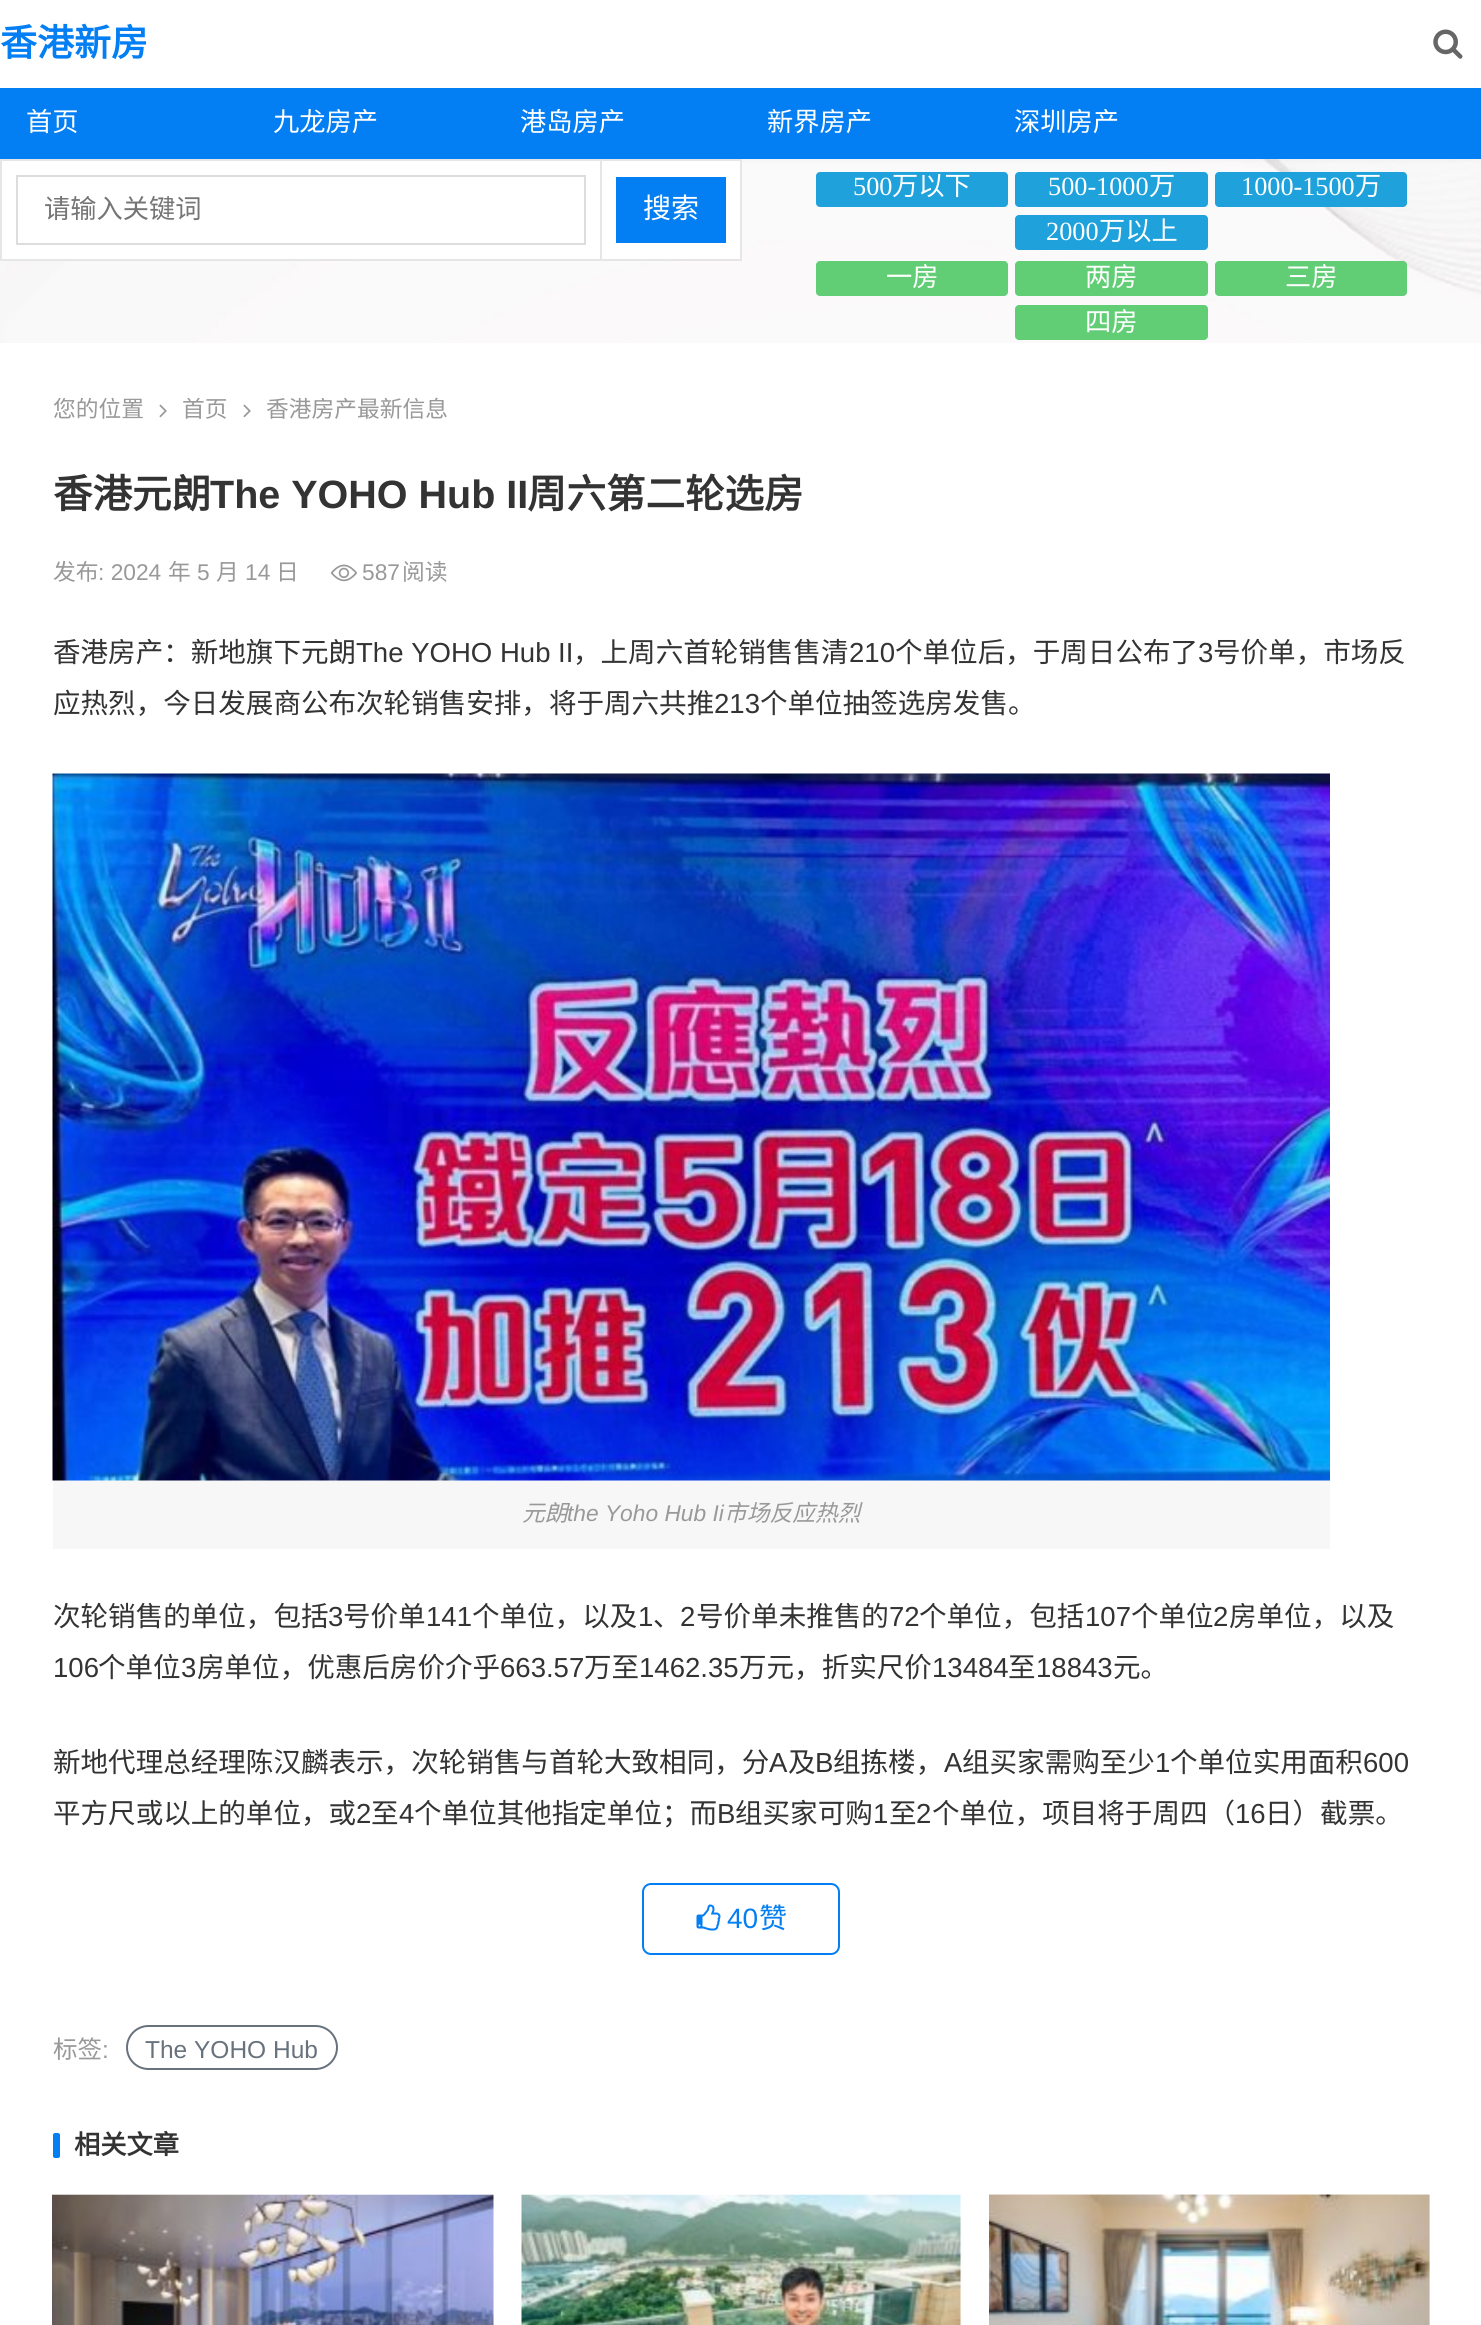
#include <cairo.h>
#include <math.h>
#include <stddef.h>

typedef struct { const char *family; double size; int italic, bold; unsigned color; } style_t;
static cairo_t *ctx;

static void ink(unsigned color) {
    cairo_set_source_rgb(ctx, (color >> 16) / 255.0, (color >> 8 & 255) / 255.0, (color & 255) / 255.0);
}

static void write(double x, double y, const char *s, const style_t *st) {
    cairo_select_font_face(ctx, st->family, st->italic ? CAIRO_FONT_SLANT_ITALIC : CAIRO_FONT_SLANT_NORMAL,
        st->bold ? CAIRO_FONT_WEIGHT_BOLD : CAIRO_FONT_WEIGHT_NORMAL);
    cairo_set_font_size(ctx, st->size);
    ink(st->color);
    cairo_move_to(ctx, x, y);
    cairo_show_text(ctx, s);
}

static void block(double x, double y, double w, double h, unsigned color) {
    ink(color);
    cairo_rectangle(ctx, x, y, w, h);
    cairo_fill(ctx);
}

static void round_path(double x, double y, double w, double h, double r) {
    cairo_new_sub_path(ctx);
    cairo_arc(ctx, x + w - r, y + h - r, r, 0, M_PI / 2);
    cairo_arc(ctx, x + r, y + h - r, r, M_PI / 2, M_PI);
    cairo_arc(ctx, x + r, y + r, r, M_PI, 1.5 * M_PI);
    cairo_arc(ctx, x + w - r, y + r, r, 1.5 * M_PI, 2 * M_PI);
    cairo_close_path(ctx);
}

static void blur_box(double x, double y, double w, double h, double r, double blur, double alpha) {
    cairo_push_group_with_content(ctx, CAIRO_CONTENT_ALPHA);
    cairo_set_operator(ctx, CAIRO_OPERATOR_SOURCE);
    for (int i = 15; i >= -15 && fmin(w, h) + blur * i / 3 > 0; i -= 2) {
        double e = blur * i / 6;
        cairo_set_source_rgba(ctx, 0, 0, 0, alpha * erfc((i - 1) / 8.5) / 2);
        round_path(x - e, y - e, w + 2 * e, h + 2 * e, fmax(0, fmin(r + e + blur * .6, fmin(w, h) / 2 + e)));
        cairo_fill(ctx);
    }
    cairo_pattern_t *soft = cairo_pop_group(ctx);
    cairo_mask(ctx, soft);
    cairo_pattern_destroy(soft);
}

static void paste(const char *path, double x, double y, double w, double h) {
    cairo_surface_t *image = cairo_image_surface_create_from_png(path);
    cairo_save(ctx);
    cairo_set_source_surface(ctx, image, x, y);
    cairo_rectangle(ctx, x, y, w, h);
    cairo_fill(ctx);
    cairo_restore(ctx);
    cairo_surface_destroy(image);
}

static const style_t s1 = {"Noto Sans CJK SC", 37, 0, 1, 0x037ef3};
static const style_t s2 = {"Noto Sans CJK SC", 26.25, 0, 0, 0xffffff};
static const style_t s3 = {"Noto Sans CJK SC", 26.25, 0, 0, 0x757575};
static const style_t s4 = {"Noto Sans CJK SC", 28, 0, 0, 0xffffff};
static const style_t s5 = {"Liberation Serif", 26.25, 0, 0, 0xffffff};
static const style_t s6 = {"Noto Sans CJK SC", 22.75, 0, 0, 0x999999};
static const style_t s7 = {"Noto Sans CJK SC", 39.5, 0, 1, 0x333333};
static const style_t s8 = {"Liberation Sans", 39.5, 0, 1, 0x333333};
static const style_t s9 = {"Liberation Sans", 22.75, 0, 0, 0x999999};
static const style_t s10 = {"Noto Sans CJK SC", 27.55, 0, 0, 0x333333};
static const style_t s11 = {"Liberation Sans", 27.55, 0, 0, 0x333333};
static const style_t s12 = {"Noto Sans CJK SC", 22.75, 1, 0, 0x999999};
static const style_t s13 = {"Liberation Sans", 22.75, 1, 0, 0x999999};
static const style_t s14 = {"Liberation Sans", 28, 0, 0, 0x037ef3};
static const style_t s15 = {"Noto Sans CJK SC", 28, 0, 0, 0x037ef3};
static const style_t s16 = {"Noto Sans CJK SC", 24.5, 0, 0, 0x999999};
static const style_t s17 = {"Liberation Sans", 24.5, 0, 0, 0x999999};
static const style_t s18 = {"Liberation Sans", 24.5, 0, 0, 0x68727d};
static const style_t s19 = {"Noto Sans CJK SC", 26.25, 0, 1, 0x333333};

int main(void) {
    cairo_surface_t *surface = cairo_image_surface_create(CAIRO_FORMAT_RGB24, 1481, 2325);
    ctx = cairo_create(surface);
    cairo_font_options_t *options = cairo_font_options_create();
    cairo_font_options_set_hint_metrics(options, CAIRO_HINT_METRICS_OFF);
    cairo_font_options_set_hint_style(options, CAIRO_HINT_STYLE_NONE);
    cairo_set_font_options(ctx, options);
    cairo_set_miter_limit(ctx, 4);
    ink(0xffffff);
    cairo_paint(ctx);
    paste("pic1.png", 0, 159, 1481, 184);
    ink(0x000000);
    blur_box(0, 0, 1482, 159, 0, 3.5, 0.06);
    block(0, 0, 1481, 88, 0xffffff);
    write(0, 56, "香港新房", &s1);
    paste("pic2.png", 1433, 29, 30, 30);
    block(0, 88, 1481, 71, 0x037ef3);
    write(26, 131, "首页", &s2);
    write(273, 131, "九龙房产", &s2);
    write(520, 131, "港岛房产", &s2);
    write(767, 131, "新界房产", &s2);
    write(1014, 131, "深圳房产", &s2);
    block(2, 161, 598, 98, 0xffffff);
    block(600, 159, 142, 2, 0xe6e6e6);
    block(740, 159, 2, 102, 0xe6e6e6);
    block(600, 259, 142, 2, 0xe6e6e6);
    block(600, 159, 2, 102, 0xe6e6e6);
    block(0, 159, 602, 2, 0xe6e6e6);
    block(0, 259, 602, 2, 0xe6e6e6);
    block(0, 159, 2, 102, 0xe6e6e6);
    cairo_rectangle(ctx, 17, 176, 568, 68);
    ink(0xdddddd);
    cairo_stroke(ctx);
    write(44, 218, "请输入关键词", &s3);
    block(602, 161, 138, 98, 0xffffff);
    block(616, 177, 110, 66, 0x037ef3);
    write(643, 218, "搜索", &s4);
    ink(0x1fa2dc);
    round_path(816, 172, 192, 35, 4);
    cairo_fill(ctx);
    write(853, 195, "500", &s5);
    write(892, 195, "万以下", &s2);
    ink(0x1fa2dc);
    round_path(1015, 172, 193, 35, 4);
    cairo_fill(ctx);
    write(1048, 195, "500-1000", &s5);
    write(1149, 195, "万", &s2);
    ink(0x1fa2dc);
    round_path(1215, 172, 192, 35, 4);
    cairo_fill(ctx);
    write(1241, 195, "1000-1500", &s5);
    write(1355, 195, "万", &s2);
    ink(0x1fa2dc);
    round_path(1015, 215, 193, 35, 4);
    cairo_fill(ctx);
    write(1046, 240, "2000", &s5);
    write(1099, 240, "万以上", &s2);
    ink(0x61ce76);
    round_path(816, 261, 192, 35, 4);
    cairo_fill(ctx);
    write(886, 286, "一房", &s2);
    ink(0x61ce76);
    round_path(1015, 261, 193, 35, 4);
    cairo_fill(ctx);
    write(1085, 286, "两房", &s2);
    ink(0x61ce76);
    round_path(1215, 261, 192, 35, 4);
    cairo_fill(ctx);
    write(1285, 286, "三房", &s2);
    ink(0x61ce76);
    round_path(1015, 305, 193, 35, 4);
    cairo_fill(ctx);
    write(1085, 331, "四房", &s2);
    write(53, 417, "您的位置", &s6);
    paste("pic3.png", 159, 404, 8, 14);
    write(182, 417, "首页", &s6);
    paste("pic3.png", 243, 404, 8, 14);
    write(266, 417, "香港房产最新信息", &s6);
    write(53, 508, "香港元朗", &s7);
    write(210, 508, "The YOHO Hub II", &s8);
    write(527, 508, "周六第二轮选房", &s7);
    write(53, 580, "发布", &s6);
    write(98, 580, ": 2024", &s9);
    write(168, 580, "年", &s6);
    write(197, 580, "5", &s9);
    write(216, 580, "月", &s6);
    write(245, 580, "14", &s9);
    write(276, 580, "日", &s6);
    paste("pic4.png", 330, 564, 27, 18);
    write(362, 580, "587", &s9);
    write(402, 580, "阅读", &s6);
    write(53, 662, "香港房产：新地旗下元朗", &s10);
    write(356, 662, "The YOHO Hub II", &s11);
    write(573, 662, "，上周六首轮销售售清", &s10);
    write(849, 662, "210", &s11);
    write(895, 662, "个单位后，于周日公布了", &s10);
    write(1198, 662, "3", &s11);
    write(1213, 662, "号价单，市场反", &s10);
    write(53, 713, "应热烈，今日发展商公布次轮销售安排，将于周六共推", &s10);
    write(714, 713, "213", &s11);
    write(760, 713, "个单位抽签选房发售。", &s10);
    block(53, 1480, 1277, 69, 0xf7f7f7);
    paste("pic5.png", 52, 773, 1278, 708);
    write(522, 1521, "元朗", &s12);
    write(567, 1521, "the Yoho Hub Ii", &s13);
    write(724, 1521, "市场反应热烈", &s12);
    write(53, 1626, "次轮销售的单位，包括", &s10);
    write(328, 1626, "3", &s11);
    write(343, 1626, "号价单", &s10);
    write(426, 1626, "141", &s11);
    write(472, 1626, "个单位，以及", &s10);
    write(638, 1626, "1", &s11);
    write(653, 1626, "、", &s10);
    write(680, 1626, "2", &s11);
    write(696, 1626, "号价单未推售的", &s10);
    write(889, 1626, "72", &s11);
    write(919, 1626, "个单位，包括", &s10);
    write(1085, 1626, "107", &s11);
    write(1131, 1626, "个单位", &s10);
    write(1213, 1626, "2", &s11);
    write(1229, 1626, "房单位，以及", &s10);
    write(53, 1677, "106", &s11);
    write(98, 1677, "个单位", &s10);
    write(181, 1677, "3", &s11);
    write(197, 1677, "房单位，优惠后房价介乎", &s10);
    write(500, 1677, "663.57", &s11);
    write(584, 1677, "万至", &s10);
    write(639, 1677, "1462.35", &s11);
    write(739, 1677, "万元，折实尺价", &s10);
    write(932, 1677, "13484", &s11);
    write(1008, 1677, "至", &s10);
    write(1036, 1677, "18843", &s11);
    write(1113, 1677, "元。", &s10);
    write(53, 1772, "新地代理总经理陈汉麟表示，次轮销售与首轮大致相同，分", &s10);
    write(769, 1772, "A", &s11);
    write(788, 1772, "及", &s10);
    write(815, 1772, "B", &s11);
    write(833, 1772, "组拣楼，", &s10);
    write(944, 1772, "A", &s11);
    write(962, 1772, "组买家需购至少", &s10);
    write(1155, 1772, "1", &s11);
    write(1170, 1772, "个单位实用面积", &s10);
    write(1363, 1772, "600", &s11);
    write(53, 1823, "平方尺或以上的单位，或", &s10);
    write(356, 1823, "2", &s11);
    write(371, 1823, "至", &s10);
    write(399, 1823, "4", &s11);
    write(414, 1823, "个单位其他指定单位；而", &s10);
    write(717, 1823, "B", &s11);
    write(735, 1823, "组买家可购", &s10);
    write(873, 1823, "1", &s11);
    write(889, 1823, "至", &s10);
    write(916, 1823, "2", &s11);
    write(932, 1823, "个单位，项目将于周四（", &s10);
    write(1235, 1823, "16", &s11);
    write(1265, 1823, "日）截票。", &s10);
    round_path(643, 1884, 196, 70, 8);
    ink(0x037ef3);
    cairo_stroke(ctx);
    paste("pic6.png", 696, 1904, 25, 27);
    write(727, 1928, "40", &s14);
    write(759, 1928, "赞", &s15);
    write(53, 2058, "标签", &s16);
    write(102, 2058, ":", &s17);
    round_path(127, 2026, 210, 43, 21.5);
    ink(0x68727d);
    cairo_stroke(ctx);
    write(145, 2058, "The YOHO Hub", &s18);
    ink(0x037ef3);
    round_path(53, 2133, 7, 25, 2);
    cairo_fill(ctx);
    write(74, 2154, "相关文章", &s19);
    paste("pic7.png", 52, 2194, 442, 131);
    paste("pic8.png", 521, 2194, 441, 131);
    paste("pic9.png", 989, 2194, 441, 131);
    cairo_surface_write_to_png(surface, "screenshot.png");
    cairo_font_options_destroy(options);
    cairo_destroy(ctx);
    cairo_surface_destroy(surface);
    return 0;
}
